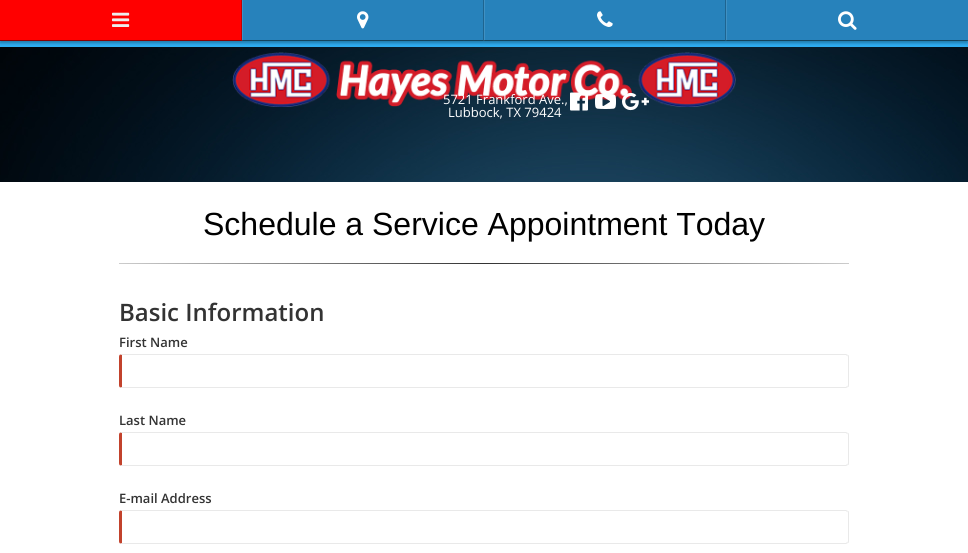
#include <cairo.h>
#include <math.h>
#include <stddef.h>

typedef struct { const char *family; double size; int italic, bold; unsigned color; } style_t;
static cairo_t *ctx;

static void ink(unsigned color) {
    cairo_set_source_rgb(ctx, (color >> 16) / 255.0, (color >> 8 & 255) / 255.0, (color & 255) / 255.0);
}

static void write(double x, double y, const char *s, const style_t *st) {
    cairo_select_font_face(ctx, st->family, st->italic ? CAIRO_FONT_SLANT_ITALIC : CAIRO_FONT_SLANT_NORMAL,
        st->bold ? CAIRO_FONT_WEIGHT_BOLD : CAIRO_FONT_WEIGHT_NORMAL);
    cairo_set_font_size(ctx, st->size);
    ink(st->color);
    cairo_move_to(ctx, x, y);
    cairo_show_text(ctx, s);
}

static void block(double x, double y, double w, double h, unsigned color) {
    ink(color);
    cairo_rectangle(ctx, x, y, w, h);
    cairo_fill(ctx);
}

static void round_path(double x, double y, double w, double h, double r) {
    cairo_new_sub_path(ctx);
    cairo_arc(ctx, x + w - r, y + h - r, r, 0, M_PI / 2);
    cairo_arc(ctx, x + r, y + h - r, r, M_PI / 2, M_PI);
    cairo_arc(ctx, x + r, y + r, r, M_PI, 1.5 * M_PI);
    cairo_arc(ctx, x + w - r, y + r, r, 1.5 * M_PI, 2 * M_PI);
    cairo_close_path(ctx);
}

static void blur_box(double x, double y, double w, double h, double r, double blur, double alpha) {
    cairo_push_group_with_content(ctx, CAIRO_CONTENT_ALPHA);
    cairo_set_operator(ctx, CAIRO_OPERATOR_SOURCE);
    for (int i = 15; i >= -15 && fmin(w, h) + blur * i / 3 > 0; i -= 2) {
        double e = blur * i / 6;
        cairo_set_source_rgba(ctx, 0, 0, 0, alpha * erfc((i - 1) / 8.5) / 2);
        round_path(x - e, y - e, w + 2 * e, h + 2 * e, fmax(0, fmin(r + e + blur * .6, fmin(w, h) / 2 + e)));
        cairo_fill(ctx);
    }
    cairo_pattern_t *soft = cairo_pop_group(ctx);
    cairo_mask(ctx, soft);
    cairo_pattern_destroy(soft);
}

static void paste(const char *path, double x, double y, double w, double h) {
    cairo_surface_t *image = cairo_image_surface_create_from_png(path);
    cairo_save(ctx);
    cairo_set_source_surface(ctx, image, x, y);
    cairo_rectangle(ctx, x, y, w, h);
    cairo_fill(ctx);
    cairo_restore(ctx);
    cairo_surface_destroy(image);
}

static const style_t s1 = {"Open Sans", 13, 0, 0, 0xffffff};
static const style_t s2 = {"Liberation Sans", 32, 0, 0, 0x000000};
static const style_t s3 = {"Open Sans SemiBold", 24, 0, 0, 0x333333};
static const style_t s4 = {"Open Sans SemiBold", 13, 0, 0, 0x333333};

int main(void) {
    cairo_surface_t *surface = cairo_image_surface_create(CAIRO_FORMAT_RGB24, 968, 553);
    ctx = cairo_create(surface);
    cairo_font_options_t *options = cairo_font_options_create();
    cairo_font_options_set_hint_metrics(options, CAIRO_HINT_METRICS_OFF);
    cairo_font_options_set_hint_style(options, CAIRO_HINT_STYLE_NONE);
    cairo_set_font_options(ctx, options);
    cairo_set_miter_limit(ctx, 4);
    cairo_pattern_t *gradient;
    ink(0xffffff);
    cairo_paint(ctx);
    paste("pic5.png", 0, 47, 968, 135);
    block(0, 40, 968, 7, 0x2eacf0);
    ink(0x000000);
    blur_box(0, 3, 968, 40, 0, 1.5, 0.3);
    block(242, 0, 726, 40, 0x2782bb);
    cairo_set_source_rgba(ctx, 1, 1, 1, 0.12);
    cairo_rectangle(ctx, 242, 0, 1, 41);
    cairo_fill(ctx);
    block(0, 0, 242, 41, 0xff0000);
    ink(0xc40000);
    cairo_new_path(ctx);
    cairo_move_to(ctx, 242, 0);
    cairo_line_to(ctx, 242, 41);
    cairo_line_to(ctx, 241, 40);
    cairo_line_to(ctx, 241, 0);
    cairo_close_path(ctx);
    cairo_fill(ctx);
    cairo_set_source_rgba(ctx, 0, 0, 0, 0.45);
    cairo_new_path(ctx);
    cairo_move_to(ctx, 242, 41);
    cairo_line_to(ctx, 0, 41);
    cairo_line_to(ctx, 0, 40);
    cairo_line_to(ctx, 241, 40);
    cairo_close_path(ctx);
    cairo_fill(ctx);
    paste("pic1.png", 112, 12, 18, 15);
    cairo_set_source_rgba(ctx, 1, 1, 1, 0.12);
    cairo_rectangle(ctx, 484, 0, 1, 41);
    cairo_fill(ctx);
    cairo_set_source_rgba(ctx, 0, 0, 0, 0.23);
    cairo_new_path(ctx);
    cairo_move_to(ctx, 484, 0);
    cairo_line_to(ctx, 484, 41);
    cairo_line_to(ctx, 483, 40);
    cairo_line_to(ctx, 483, 0);
    cairo_close_path(ctx);
    cairo_fill(ctx);
    cairo_set_source_rgba(ctx, 0, 0, 0, 0.45);
    cairo_new_path(ctx);
    cairo_move_to(ctx, 484, 41);
    cairo_line_to(ctx, 242, 41);
    cairo_line_to(ctx, 242, 40);
    cairo_line_to(ctx, 483, 40);
    cairo_close_path(ctx);
    cairo_fill(ctx);
    paste("pic2.png", 357, 11, 12, 18);
    cairo_set_source_rgba(ctx, 1, 1, 1, 0.12);
    cairo_rectangle(ctx, 726, 0, 1, 41);
    cairo_fill(ctx);
    cairo_set_source_rgba(ctx, 0, 0, 0, 0.23);
    cairo_new_path(ctx);
    cairo_move_to(ctx, 726, 0);
    cairo_line_to(ctx, 726, 41);
    cairo_line_to(ctx, 725, 40);
    cairo_line_to(ctx, 725, 0);
    cairo_close_path(ctx);
    cairo_fill(ctx);
    cairo_set_source_rgba(ctx, 0, 0, 0, 0.45);
    cairo_new_path(ctx);
    cairo_move_to(ctx, 726, 41);
    cairo_line_to(ctx, 484, 41);
    cairo_line_to(ctx, 484, 40);
    cairo_line_to(ctx, 725, 40);
    cairo_close_path(ctx);
    cairo_fill(ctx);
    paste("pic3.png", 597, 11, 16, 16);
    cairo_rectangle(ctx, 726, 40, 242, 1);
    cairo_fill(ctx);
    paste("pic4.png", 838, 11, 19, 19);
    paste("pic6.png", 232, 52, 504, 55);
    write(443, 104, "5721 Frankford Ave.,", &s1);
    write(448, 117, "Lubbock, TX 79424", &s1);
    paste("pic7.png", 570, 92, 18, 19);
    paste("pic8.png", 595, 94, 21, 15);
    paste("pic9.png", 622, 92, 27, 19);
    write(203, 235, "Schedule a Service Appointment Today", &s2);
    gradient = cairo_pattern_create_linear(119, 264, 849, 264);
    cairo_pattern_add_color_stop_rgba(gradient, 0, 0.8, 0.8, 0.8, 1);
    cairo_pattern_add_color_stop_rgba(gradient, 0.5, 0.2, 0.2, 0.2, 1);
    cairo_pattern_add_color_stop_rgba(gradient, 1, 0.8, 0.8, 0.8, 1);
    cairo_set_source(ctx, gradient);
    cairo_pattern_destroy(gradient);
    cairo_rectangle(ctx, 119, 263, 730, 1);
    cairo_fill(ctx);
    write(119, 321, "Basic Information", &s3);
    write(119, 347, "First Name", &s4);
    ink(0xe9e9e9);
    cairo_new_path(ctx);
    cairo_move_to(ctx, 122, 354);
    cairo_line_to(ctx, 120, 354);
    cairo_line_to(ctx, 122, 355);
    cairo_line_to(ctx, 846, 355);
    cairo_line_to(ctx, 847, 356);
    cairo_line_to(ctx, 848, 355);
    cairo_line_to(ctx, 846, 354);
    cairo_close_path(ctx);
    cairo_fill(ctx);
    cairo_new_path(ctx);
    cairo_move_to(ctx, 849, 385);
    cairo_line_to(ctx, 849, 357);
    cairo_curve_to(ctx, 849, 356, 849, 355, 848, 355);
    cairo_line_to(ctx, 847.5, 355.5);
    cairo_line_to(ctx, 848, 357);
    cairo_line_to(ctx, 848, 385);
    cairo_line_to(ctx, 847.5, 386.5);
    cairo_line_to(ctx, 848, 387);
    cairo_curve_to(ctx, 849, 387, 849, 386, 849, 385);
    cairo_close_path(ctx);
    cairo_fill(ctx);
    cairo_new_path(ctx);
    cairo_move_to(ctx, 122, 388);
    cairo_line_to(ctx, 846, 388);
    cairo_line_to(ctx, 848, 387);
    cairo_line_to(ctx, 847, 386);
    cairo_line_to(ctx, 846, 387);
    cairo_line_to(ctx, 122, 387);
    cairo_line_to(ctx, 120, 388);
    cairo_close_path(ctx);
    cairo_fill(ctx);
    ink(0xc2422c);
    cairo_new_path(ctx);
    cairo_move_to(ctx, 122, 355);
    cairo_line_to(ctx, 120, 354.5);
    cairo_curve_to(ctx, 119.5, 355, 119, 355.5, 119, 357);
    cairo_line_to(ctx, 119, 385);
    cairo_curve_to(ctx, 119, 386.5, 119.5, 387, 120, 387.5);
    cairo_line_to(ctx, 122, 387);
    cairo_close_path(ctx);
    cairo_fill(ctx);
    write(119, 425, "Last Name", &s4);
    ink(0xe9e9e9);
    cairo_new_path(ctx);
    cairo_move_to(ctx, 122, 432);
    cairo_line_to(ctx, 120, 432);
    cairo_line_to(ctx, 122, 433);
    cairo_line_to(ctx, 846, 433);
    cairo_line_to(ctx, 847, 434);
    cairo_line_to(ctx, 848, 433);
    cairo_line_to(ctx, 846, 432);
    cairo_close_path(ctx);
    cairo_fill(ctx);
    cairo_new_path(ctx);
    cairo_move_to(ctx, 849, 463);
    cairo_line_to(ctx, 849, 435);
    cairo_curve_to(ctx, 849, 434, 849, 433, 848, 433);
    cairo_line_to(ctx, 847.5, 433.5);
    cairo_line_to(ctx, 848, 435);
    cairo_line_to(ctx, 848, 463);
    cairo_line_to(ctx, 847.5, 464.5);
    cairo_line_to(ctx, 848, 465);
    cairo_curve_to(ctx, 849, 465, 849, 464, 849, 463);
    cairo_close_path(ctx);
    cairo_fill(ctx);
    cairo_new_path(ctx);
    cairo_move_to(ctx, 122, 466);
    cairo_line_to(ctx, 846, 466);
    cairo_line_to(ctx, 848, 465);
    cairo_line_to(ctx, 847, 464);
    cairo_line_to(ctx, 846, 465);
    cairo_line_to(ctx, 122, 465);
    cairo_line_to(ctx, 120, 466);
    cairo_close_path(ctx);
    cairo_fill(ctx);
    ink(0xc2422c);
    cairo_new_path(ctx);
    cairo_move_to(ctx, 122, 433);
    cairo_line_to(ctx, 120, 432.5);
    cairo_curve_to(ctx, 119.5, 433, 119, 433.5, 119, 435);
    cairo_line_to(ctx, 119, 463);
    cairo_curve_to(ctx, 119, 464.5, 119.5, 465, 120, 465.5);
    cairo_line_to(ctx, 122, 465);
    cairo_close_path(ctx);
    cairo_fill(ctx);
    write(119, 503, "E-mail Address", &s4);
    ink(0xe9e9e9);
    cairo_new_path(ctx);
    cairo_move_to(ctx, 122, 510);
    cairo_line_to(ctx, 120, 510);
    cairo_line_to(ctx, 122, 511);
    cairo_line_to(ctx, 846, 511);
    cairo_line_to(ctx, 847, 512);
    cairo_line_to(ctx, 848, 511);
    cairo_line_to(ctx, 846, 510);
    cairo_close_path(ctx);
    cairo_fill(ctx);
    cairo_new_path(ctx);
    cairo_move_to(ctx, 849, 541);
    cairo_line_to(ctx, 849, 513);
    cairo_curve_to(ctx, 849, 512, 849, 511, 848, 511);
    cairo_line_to(ctx, 847.5, 511.5);
    cairo_line_to(ctx, 848, 513);
    cairo_line_to(ctx, 848, 541);
    cairo_line_to(ctx, 847.5, 542.5);
    cairo_line_to(ctx, 848, 543);
    cairo_curve_to(ctx, 849, 543, 849, 542, 849, 541);
    cairo_close_path(ctx);
    cairo_fill(ctx);
    cairo_new_path(ctx);
    cairo_move_to(ctx, 122, 544);
    cairo_line_to(ctx, 846, 544);
    cairo_line_to(ctx, 848, 543);
    cairo_line_to(ctx, 847, 542);
    cairo_line_to(ctx, 846, 543);
    cairo_line_to(ctx, 122, 543);
    cairo_line_to(ctx, 120, 544);
    cairo_close_path(ctx);
    cairo_fill(ctx);
    ink(0xc2422c);
    cairo_new_path(ctx);
    cairo_move_to(ctx, 122, 511);
    cairo_line_to(ctx, 120, 510.5);
    cairo_curve_to(ctx, 119.5, 511, 119, 511.5, 119, 513);
    cairo_line_to(ctx, 119, 541);
    cairo_curve_to(ctx, 119, 542.5, 119.5, 543, 120, 543.5);
    cairo_line_to(ctx, 122, 543);
    cairo_close_path(ctx);
    cairo_fill(ctx);
    cairo_surface_write_to_png(surface, "screenshot.png");
    cairo_font_options_destroy(options);
    cairo_destroy(ctx);
    cairo_surface_destroy(surface);
    return 0;
}
